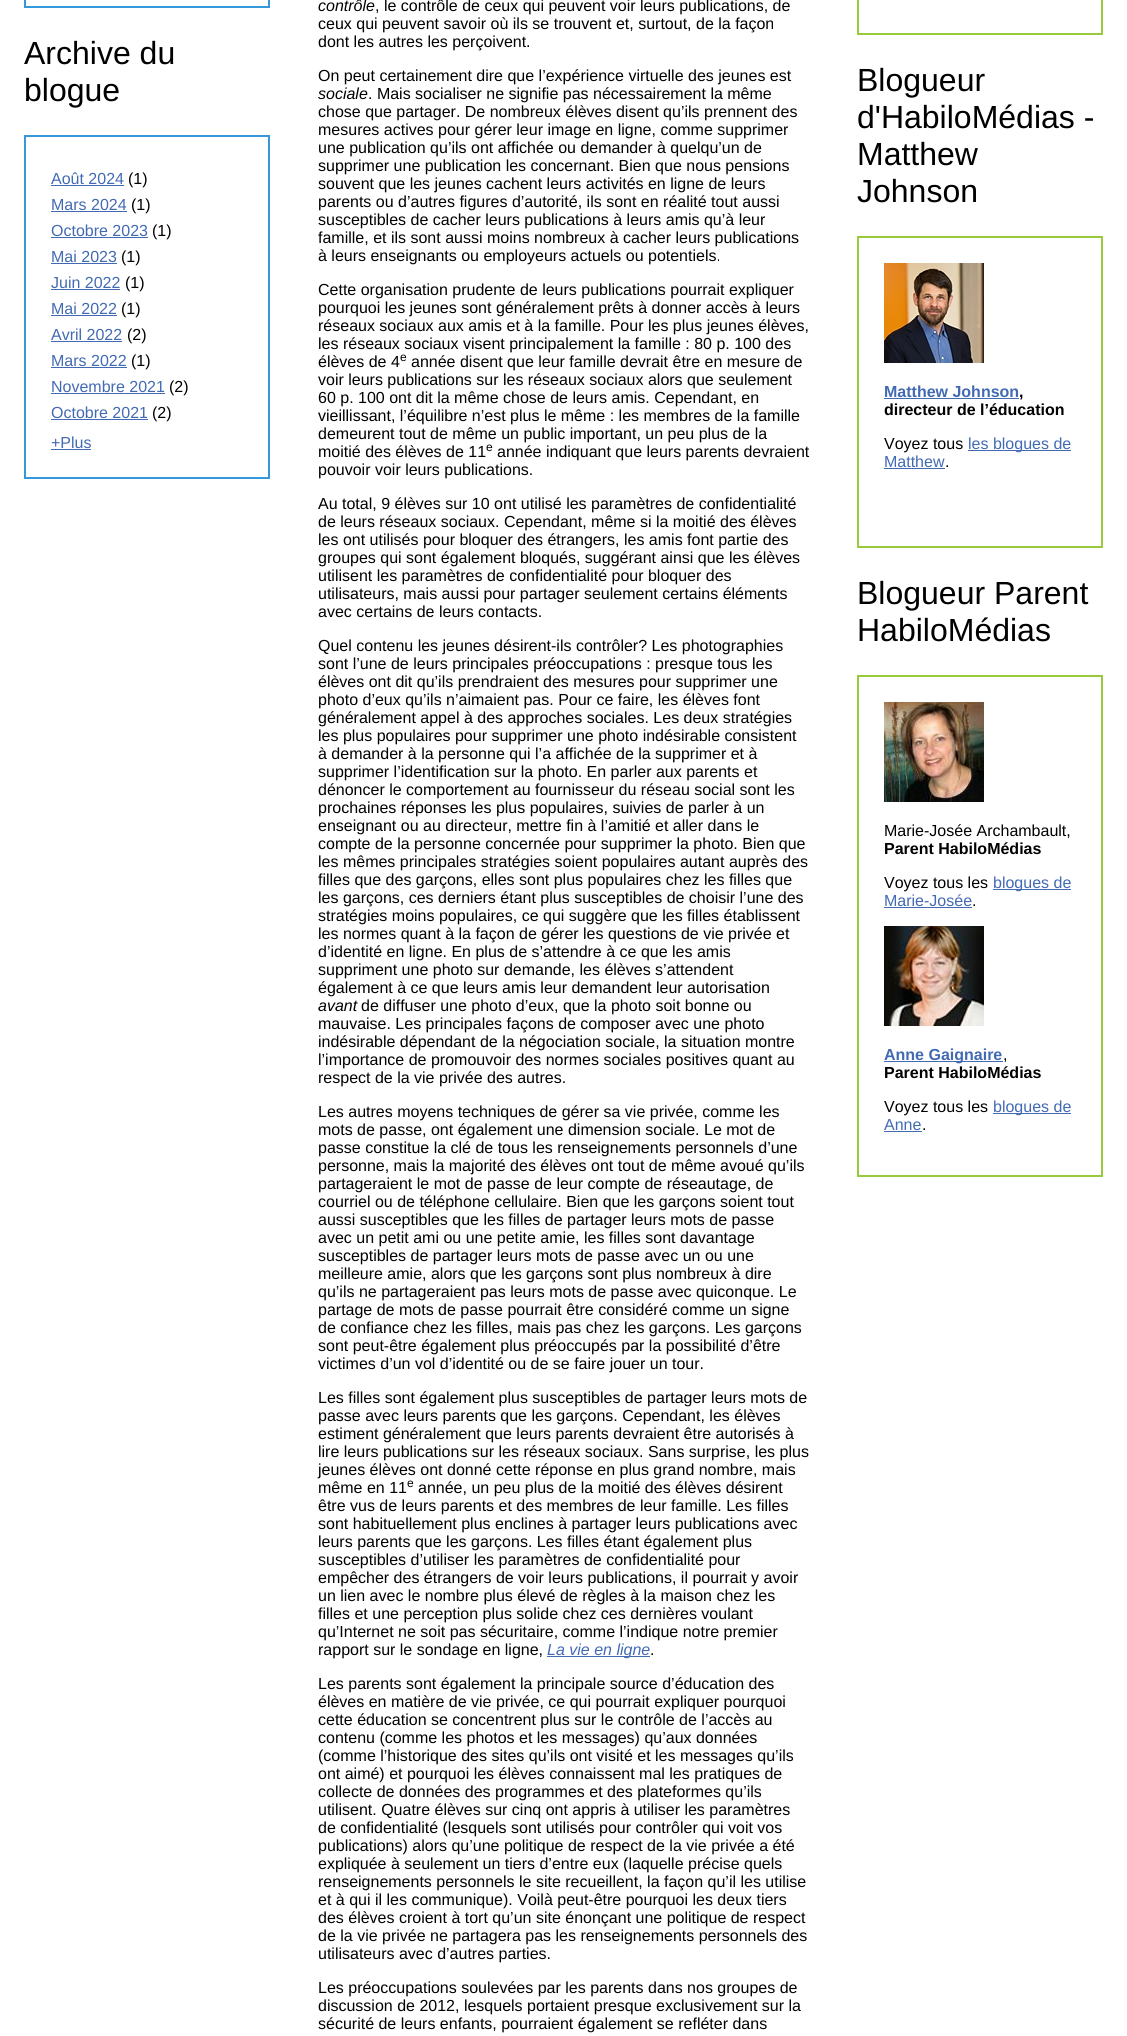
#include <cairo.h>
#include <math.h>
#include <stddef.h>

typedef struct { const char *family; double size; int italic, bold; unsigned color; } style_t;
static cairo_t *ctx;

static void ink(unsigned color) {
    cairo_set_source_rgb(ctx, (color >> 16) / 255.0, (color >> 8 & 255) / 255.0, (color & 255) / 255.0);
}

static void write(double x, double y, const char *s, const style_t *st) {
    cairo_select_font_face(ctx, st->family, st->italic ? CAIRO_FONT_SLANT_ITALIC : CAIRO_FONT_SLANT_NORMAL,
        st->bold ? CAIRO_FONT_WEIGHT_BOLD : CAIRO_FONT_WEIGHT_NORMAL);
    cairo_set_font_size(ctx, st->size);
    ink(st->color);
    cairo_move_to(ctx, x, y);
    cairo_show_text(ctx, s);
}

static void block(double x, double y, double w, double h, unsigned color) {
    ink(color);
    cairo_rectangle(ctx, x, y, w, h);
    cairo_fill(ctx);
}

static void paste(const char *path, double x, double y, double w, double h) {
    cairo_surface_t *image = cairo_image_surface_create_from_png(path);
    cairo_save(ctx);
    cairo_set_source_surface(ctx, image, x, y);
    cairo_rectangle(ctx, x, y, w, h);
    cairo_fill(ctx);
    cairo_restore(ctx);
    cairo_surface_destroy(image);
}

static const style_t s1 = {"Liberation Sans", 32, 0, 0, 0x000000};
static const style_t s2 = {"Liberation Sans", 16, 0, 0, 0x426ab3};
static const style_t s3 = {"Liberation Sans", 16, 0, 0, 0x000000};
static const style_t s4 = {"Liberation Sans", 16, 1, 0, 0x000000};
static const style_t s5 = {"Liberation Sans", 12, 0, 0, 0x000000};
static const style_t s6 = {"Liberation Sans", 16, 1, 0, 0x426ab3};
static const style_t s7 = {"Liberation Sans", 16, 0, 1, 0x426ab3};
static const style_t s8 = {"Liberation Sans", 16, 0, 1, 0x000000};

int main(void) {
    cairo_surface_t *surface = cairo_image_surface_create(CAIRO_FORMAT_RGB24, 1127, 2036);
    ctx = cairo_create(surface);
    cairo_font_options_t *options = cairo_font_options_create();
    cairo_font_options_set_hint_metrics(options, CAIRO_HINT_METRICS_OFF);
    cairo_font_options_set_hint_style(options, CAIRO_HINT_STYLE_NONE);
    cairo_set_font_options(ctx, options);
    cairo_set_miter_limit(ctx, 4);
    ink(0xffffff);
    cairo_paint(ctx);
    cairo_rectangle(ctx, 25, -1, 244, 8);
    ink(0x3498db);
    cairo_stroke(ctx);
    write(24, 64, "Archive du", &s1);
    write(24, 101, "blogue", &s1);
    cairo_rectangle(ctx, 25, 136, 244, 342);
    ink(0x3498db);
    cairo_stroke(ctx);
    write(51, 184, "Août 2024", &s2);
    block(51, 185, 73, 1, 0x426ab3);
    write(128, 184, "(1)", &s3);
    write(51, 210, "Mars 2024", &s2);
    block(51, 211, 76, 1, 0x426ab3);
    write(131, 210, "(1)", &s3);
    write(51, 236, "Octobre 2023", &s2);
    block(51, 237, 97, 1, 0x426ab3);
    write(152, 236, "(1)", &s3);
    write(51, 262, "Mai 2023", &s2);
    block(51, 263, 66, 1, 0x426ab3);
    write(121, 262, "(1)", &s3);
    write(51, 288, "Juin 2022", &s2);
    block(51, 289, 69, 1, 0x426ab3);
    write(125, 288, "(1)", &s3);
    write(51, 314, "Mai 2022", &s2);
    block(51, 315, 66, 1, 0x426ab3);
    write(121, 314, "(1)", &s3);
    write(51, 340, "Avril 2022", &s2);
    block(51, 341, 71, 1, 0x426ab3);
    write(127, 340, "(2)", &s3);
    write(51, 366, "Mars 2022", &s2);
    block(51, 367, 76, 1, 0x426ab3);
    write(131, 366, "(1)", &s3);
    write(51, 392, "Novembre 2021", &s2);
    block(51, 393, 114, 1, 0x426ab3);
    write(169, 392, "(2)", &s3);
    write(51, 418, "Octobre 2021", &s2);
    block(51, 419, 97, 1, 0x426ab3);
    write(152, 418, "(2)", &s3);
    write(51, 448, "+Plus", &s2);
    block(51, 449, 40, 1, 0x426ab3);
    write(318, 11, "contrôle", &s4);
    write(375, 11, ", le contrôle de ceux qui peuvent voir leurs publications, de", &s3);
    write(318, 29, "ceux qui peuvent savoir où ils se trouvent et, surtout, de la façon", &s3);
    write(318, 47, "dont les autres les perçoivent.", &s3);
    write(318, 81, "On peut certainement dire que l’expérience virtuelle des jeunes est", &s3);
    write(318, 99, "sociale", &s4);
    write(368, 99, ". Mais socialiser ne signifie pas nécessairement la même", &s3);
    write(318, 117, "chose que partager. De nombreux élèves disent qu’ils prennent des", &s3);
    write(318, 135, "mesures actives pour gérer leur image en ligne, comme supprimer", &s3);
    write(318, 153, "une publication qu’ils ont affichée ou demander à quelqu’un de", &s3);
    write(318, 171, "supprimer une publication les concernant. Bien que nous pensions", &s3);
    write(318, 189, "souvent que les jeunes cachent leurs activités en ligne de leurs", &s3);
    write(318, 207, "parents ou d’autres figures d’autorité, ils sont en réalité tout aussi", &s3);
    write(318, 225, "susceptibles de cacher leurs publications à leurs amis qu’à leur", &s3);
    write(318, 243, "famille, et ils sont aussi moins nombreux à cacher leurs publications", &s3);
    write(318, 261, "à leurs enseignants ou employeurs actuels ou potentiels.", &s3);
    write(318, 295, "Cette organisation prudente de leurs publications pourrait expliquer", &s3);
    write(318, 313, "pourquoi les jeunes sont généralement prêts à donner accès à leurs", &s3);
    write(318, 331, "réseaux sociaux aux amis et à la famille. Pour les plus jeunes élèves,", &s3);
    write(318, 349, "les réseaux sociaux visent principalement la famille : 80 p. 100 des", &s3);
    write(318, 367, "élèves de 4", &s3);
    write(400, 361, "e", &s5);
    write(411, 367, "année disent que leur famille devrait être en mesure de", &s3);
    write(318, 385, "voir leurs publications sur les réseaux sociaux alors que seulement", &s3);
    write(318, 403, "60 p. 100 ont dit la même chose de leurs amis. Cependant, en", &s3);
    write(318, 421, "vieillissant, l’équilibre n’est plus le même : les membres de la famille", &s3);
    write(318, 439, "demeurent tout de même un public important, un peu plus de la", &s3);
    write(318, 457, "moitié des élèves de 11", &s3);
    write(486, 451, "e", &s5);
    write(497, 457, "année indiquant que leurs parents devraient", &s3);
    write(318, 475, "pouvoir voir leurs publications.", &s3);
    write(318, 509, "Au total, 9 élèves sur 10 ont utilisé les paramètres de confidentialité", &s3);
    write(318, 527, "de leurs réseaux sociaux. Cependant, même si la moitié des élèves", &s3);
    write(318, 545, "les ont utilisés pour bloquer des étrangers, les amis font partie des", &s3);
    write(318, 563, "groupes qui sont également bloqués, suggérant ainsi que les élèves", &s3);
    write(318, 581, "utilisent les paramètres de confidentialité pour bloquer des", &s3);
    write(318, 599, "utilisateurs, mais aussi pour partager seulement certains éléments", &s3);
    write(318, 617, "avec certains de leurs contacts.", &s3);
    write(318, 651, "Quel contenu les jeunes désirent-ils contrôler? Les photographies", &s3);
    write(318, 669, "sont l’une de leurs principales préoccupations : presque tous les", &s3);
    write(318, 687, "élèves ont dit qu’ils prendraient des mesures pour supprimer une", &s3);
    write(318, 705, "photo d’eux qu’ils n’aimaient pas. Pour ce faire, les élèves font", &s3);
    write(318, 723, "généralement appel à des approches sociales. Les deux stratégies", &s3);
    write(318, 741, "les plus populaires pour supprimer une photo indésirable consistent", &s3);
    write(318, 759, "à demander à la personne qui l’a affichée de la supprimer et à", &s3);
    write(318, 777, "supprimer l’identification sur la photo. En parler aux parents et", &s3);
    write(318, 795, "dénoncer le comportement au fournisseur du réseau social sont les", &s3);
    write(318, 813, "prochaines réponses les plus populaires, suivies de parler à un", &s3);
    write(318, 831, "enseignant ou au directeur, mettre fin à l’amitié et aller dans le", &s3);
    write(318, 849, "compte de la personne concernée pour supprimer la photo. Bien que", &s3);
    write(318, 867, "les mêmes principales stratégies soient populaires autant auprès des", &s3);
    write(318, 885, "filles que des garçons, elles sont plus populaires chez les filles que", &s3);
    write(318, 903, "les garçons, ces derniers étant plus susceptibles de choisir l’une des", &s3);
    write(318, 921, "stratégies moins populaires, ce qui suggère que les filles établissent", &s3);
    write(318, 939, "les normes quant à la façon de gérer les questions de vie privée et", &s3);
    write(318, 957, "d’identité en ligne. En plus de s’attendre à ce que les amis", &s3);
    write(318, 975, "suppriment une photo sur demande, les élèves s’attendent", &s3);
    write(318, 993, "également à ce que leurs amis leur demandent leur autorisation", &s3);
    write(318, 1011, "avant", &s4);
    write(361, 1011, "de diffuser une photo d’eux, que la photo soit bonne ou", &s3);
    write(318, 1029, "mauvaise. Les principales façons de composer avec une photo", &s3);
    write(318, 1047, "indésirable dépendant de la négociation sociale, la situation montre", &s3);
    write(318, 1065, "l’importance de promouvoir des normes sociales positives quant au", &s3);
    write(318, 1083, "respect de la vie privée des autres.", &s3);
    write(318, 1117, "Les autres moyens techniques de gérer sa vie privée, comme les", &s3);
    write(318, 1135, "mots de passe, ont également une dimension sociale. Le mot de", &s3);
    write(318, 1153, "passe constitue la clé de tous les renseignements personnels d’une", &s3);
    write(318, 1171, "personne, mais la majorité des élèves ont tout de même avoué qu’ils", &s3);
    write(318, 1189, "partageraient le mot de passe de leur compte de réseautage, de", &s3);
    write(318, 1207, "courriel ou de téléphone cellulaire. Bien que les garçons soient tout", &s3);
    write(318, 1225, "aussi susceptibles que les filles de partager leurs mots de passe", &s3);
    write(318, 1243, "avec un petit ami ou une petite amie, les filles sont davantage", &s3);
    write(318, 1261, "susceptibles de partager leurs mots de passe avec un ou une", &s3);
    write(318, 1279, "meilleure amie, alors que les garçons sont plus nombreux à dire", &s3);
    write(318, 1297, "qu’ils ne partageraient pas leurs mots de passe avec quiconque. Le", &s3);
    write(318, 1315, "partage de mots de passe pourrait être considéré comme un signe", &s3);
    write(318, 1333, "de confiance chez les filles, mais pas chez les garçons. Les garçons", &s3);
    write(318, 1351, "sont peut-être également plus préoccupés par la possibilité d’être", &s3);
    write(318, 1369, "victimes d’un vol d’identité ou de se faire jouer un tour.", &s3);
    write(318, 1403, "Les filles sont également plus susceptibles de partager leurs mots de", &s3);
    write(318, 1421, "passe avec leurs parents que les garçons. Cependant, les élèves", &s3);
    write(318, 1439, "estiment généralement que leurs parents devraient être autorisés à", &s3);
    write(318, 1457, "lire leurs publications sur les réseaux sociaux. Sans surprise, les plus", &s3);
    write(318, 1475, "jeunes élèves ont donné cette réponse en plus grand nombre, mais", &s3);
    write(318, 1493, "même en 11", &s3);
    write(407, 1487, "e", &s5);
    write(418, 1493, "année, un peu plus de la moitié des élèves désirent", &s3);
    write(318, 1511, "être vus de leurs parents et des membres de leur famille. Les filles", &s3);
    write(318, 1529, "sont habituellement plus enclines à partager leurs publications avec", &s3);
    write(318, 1547, "leurs parents que les garçons. Les filles étant également plus", &s3);
    write(318, 1565, "susceptibles d’utiliser les paramètres de confidentialité pour", &s3);
    write(318, 1583, "empêcher des étrangers de voir leurs publications, il pourrait y avoir", &s3);
    write(318, 1601, "un lien avec le nombre plus élevé de règles à la maison chez les", &s3);
    write(318, 1619, "filles et une perception plus solide chez ces dernières voulant", &s3);
    write(318, 1637, "qu’Internet ne soit pas sécuritaire, comme l’indique notre premier", &s3);
    write(318, 1655, "rapport sur le sondage en ligne,", &s3);
    block(547, 1656, 103, 1, 0x426ab3);
    write(547, 1655, "La vie en ligne", &s6);
    write(650, 1655, ".", &s3);
    write(318, 1689, "Les parents sont également la principale source d’éducation des", &s3);
    write(318, 1707, "élèves en matière de vie privée, ce qui pourrait expliquer pourquoi", &s3);
    write(318, 1725, "cette éducation se concentrent plus sur le contrôle de l’accès au", &s3);
    write(318, 1743, "contenu (comme les photos et les messages) qu’aux données", &s3);
    write(318, 1761, "(comme l’historique des sites qu’ils ont visité et les messages qu’ils", &s3);
    write(318, 1779, "ont aimé) et pourquoi les élèves connaissent mal les pratiques de", &s3);
    write(318, 1797, "collecte de données des programmes et des plateformes qu’ils", &s3);
    write(318, 1815, "utilisent. Quatre élèves sur cinq ont appris à utiliser les paramètres", &s3);
    write(318, 1833, "de confidentialité (lesquels sont utilisés pour contrôler qui voit vos", &s3);
    write(318, 1851, "publications) alors qu’une politique de respect de la vie privée a été", &s3);
    write(318, 1869, "expliquée à seulement un tiers d’entre eux (laquelle précise quels", &s3);
    write(318, 1887, "renseignements personnels le site recueillent, la façon qu’il les utilise", &s3);
    write(318, 1905, "et à qui il les communique). Voilà peut-être pourquoi les deux tiers", &s3);
    write(318, 1923, "des élèves croient à tort qu’un site énonçant une politique de respect", &s3);
    write(318, 1941, "de la vie privée ne partagera pas les renseignements personnels des", &s3);
    write(318, 1959, "utilisateurs avec d’autres parties.", &s3);
    write(318, 1993, "Les préoccupations soulevées par les parents dans nos groupes de", &s3);
    write(318, 2011, "discussion de 2012, lesquels portaient presque exclusivement sur la", &s3);
    write(318, 2029, "sécurité de leurs enfants, pourraient également se refléter dans", &s3);
    cairo_rectangle(ctx, 858, -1, 244, 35);
    ink(0x99ca3c);
    cairo_stroke(ctx);
    write(857, 91, "Blogueur", &s1);
    write(857, 128, "d'HabiloMédias -", &s1);
    write(857, 165, "Matthew", &s1);
    write(857, 202, "Johnson", &s1);
    cairo_rectangle(ctx, 858, 237, 244, 310);
    ink(0x99ca3c);
    cairo_stroke(ctx);
    paste("pic1.png", 884, 263, 100, 100);
    write(884, 397, "Matthew Johnson", &s7);
    write(1019, 397, ",", &s8);
    block(884, 398, 135, 1, 0x426ab3);
    write(884, 415, "directeur de l’éducation", &s8);
    write(884, 449, "Voyez tous", &s3);
    block(968, 450, 103, 1, 0x426ab3);
    write(968, 449, "les blogues de", &s2);
    write(884, 467, "Matthew", &s2);
    block(884, 468, 61, 1, 0x426ab3);
    write(945, 467, ".", &s3);
    write(857, 604, "Blogueur Parent", &s1);
    write(857, 641, "HabiloMédias", &s1);
    cairo_rectangle(ctx, 858, 676, 244, 500);
    ink(0x99ca3c);
    cairo_stroke(ctx);
    paste("pic2.png", 884, 702, 100, 100);
    write(884, 836, "Marie-Josée Archambault,", &s3);
    write(884, 854, "Parent HabiloMédias", &s8);
    write(884, 888, "Voyez tous les", &s3);
    block(993, 889, 78, 1, 0x426ab3);
    write(993, 888, "blogues de", &s2);
    write(884, 906, "Marie-Josée", &s2);
    block(884, 907, 88, 1, 0x426ab3);
    write(972, 906, ".", &s3);
    paste("pic3.png", 884, 926, 100, 100);
    block(884, 1061, 119, 1, 0x426ab3);
    write(884, 1060, "Anne Gaignaire", &s7);
    write(1003, 1060, ",", &s3);
    write(884, 1078, "Parent HabiloMédias", &s8);
    write(884, 1112, "Voyez tous les", &s3);
    block(993, 1113, 78, 1, 0x426ab3);
    write(993, 1112, "blogues de", &s2);
    write(884, 1130, "Anne", &s2);
    block(884, 1131, 38, 1, 0x426ab3);
    write(922, 1130, ".", &s3);
    cairo_surface_write_to_png(surface, "screenshot.png");
    cairo_font_options_destroy(options);
    cairo_destroy(ctx);
    cairo_surface_destroy(surface);
    return 0;
}
